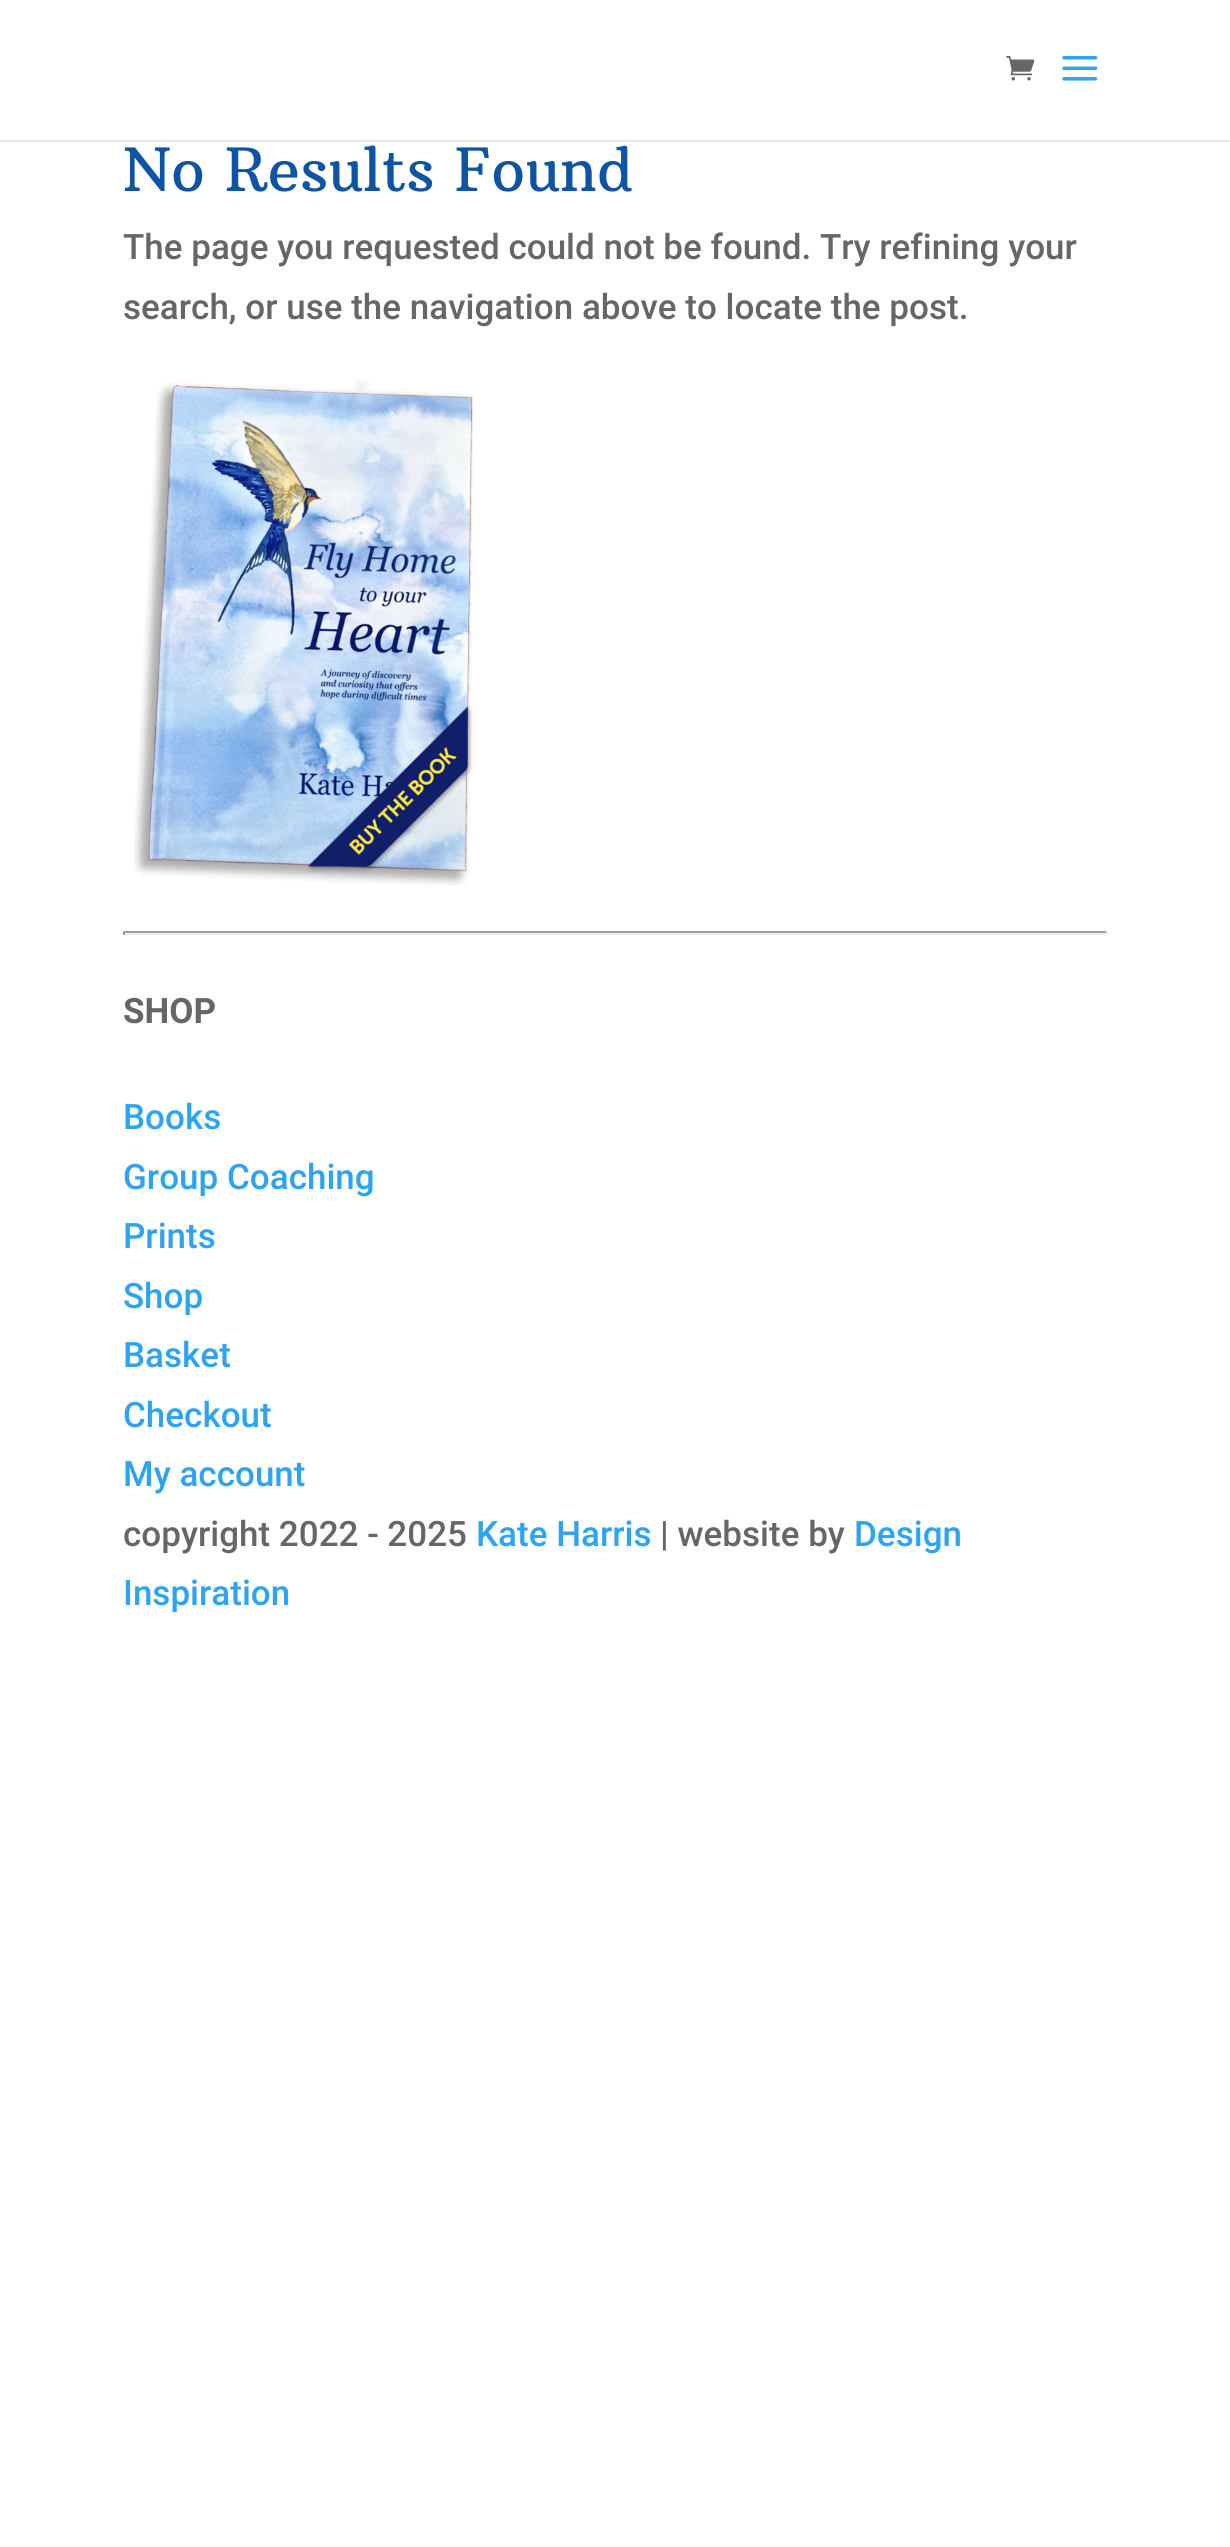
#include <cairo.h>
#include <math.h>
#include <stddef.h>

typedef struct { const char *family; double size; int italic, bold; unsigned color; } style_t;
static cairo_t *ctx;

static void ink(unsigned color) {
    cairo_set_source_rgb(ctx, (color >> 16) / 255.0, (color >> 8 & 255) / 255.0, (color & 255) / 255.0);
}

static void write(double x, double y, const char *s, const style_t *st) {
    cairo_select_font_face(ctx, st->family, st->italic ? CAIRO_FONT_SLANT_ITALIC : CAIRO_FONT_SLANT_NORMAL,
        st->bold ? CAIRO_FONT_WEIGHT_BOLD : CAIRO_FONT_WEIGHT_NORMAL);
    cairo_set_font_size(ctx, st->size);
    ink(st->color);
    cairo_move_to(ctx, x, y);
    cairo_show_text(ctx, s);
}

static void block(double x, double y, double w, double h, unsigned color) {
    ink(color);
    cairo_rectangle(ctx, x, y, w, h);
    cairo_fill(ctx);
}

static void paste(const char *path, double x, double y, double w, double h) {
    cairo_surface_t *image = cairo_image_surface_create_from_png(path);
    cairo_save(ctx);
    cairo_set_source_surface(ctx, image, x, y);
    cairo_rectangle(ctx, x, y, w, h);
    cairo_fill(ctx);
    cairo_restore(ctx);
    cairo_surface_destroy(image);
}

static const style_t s1 = {"Arbutus Slab", 59.5, 0, 0, 0x0d55a4};
static const style_t s2 = {"Roboto Medium", 35, 0, 0, 0x666666};
static const style_t s3 = {"Roboto", 35, 0, 1, 0x666666};
static const style_t s4 = {"Roboto Medium", 35, 0, 0, 0x2ea3f2};

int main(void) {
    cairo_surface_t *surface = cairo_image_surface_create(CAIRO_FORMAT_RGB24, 1230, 2547);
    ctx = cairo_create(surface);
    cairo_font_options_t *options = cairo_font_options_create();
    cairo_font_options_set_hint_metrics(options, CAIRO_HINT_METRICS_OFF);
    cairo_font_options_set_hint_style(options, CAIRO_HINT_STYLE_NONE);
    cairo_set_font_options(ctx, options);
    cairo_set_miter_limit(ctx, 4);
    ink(0xffffff);
    cairo_paint(ctx);
    block(0, 140, 1230, 2, 0xe6e6e6);
    paste("pic1.png", 1006, 56, 29, 25);
    paste("pic2.png", 1062, 56, 36, 25);
    write(123, 191, "No Results Found", &s1);
    write(123, 259, "The page you requested could not be found. Try refining your", &s2);
    write(123, 319, "search, or use the navigation above to locate the post.", &s2);
    paste("pic3.png", 134, 380, 339, 506);
    block(123, 931, 985, 2, 0x9f9f9f);
    block(1106, 931, 2, 4, 0xeeeeee);
    block(123, 933, 985, 2, 0xeeeeee);
    block(123, 931, 2, 4, 0x9f9f9f);
    write(123, 1023, "SHOP", &s3);
    write(123, 1129, "Books", &s4);
    write(123, 1189, "Group Coaching", &s4);
    write(123, 1248, "Prints", &s4);
    write(123, 1308, "Shop", &s4);
    write(123, 1367, "Basket", &s4);
    write(123, 1427, "Checkout", &s4);
    write(123, 1486, "My account", &s4);
    write(123, 1546, "copyright 2022 - 2025", &s2);
    write(476, 1546, "Kate Harris", &s4);
    write(660, 1546, "| website by", &s2);
    write(854, 1546, "Design", &s4);
    write(123, 1605, "Inspiration", &s4);
    cairo_surface_write_to_png(surface, "screenshot.png");
    cairo_font_options_destroy(options);
    cairo_destroy(ctx);
    cairo_surface_destroy(surface);
    return 0;
}
